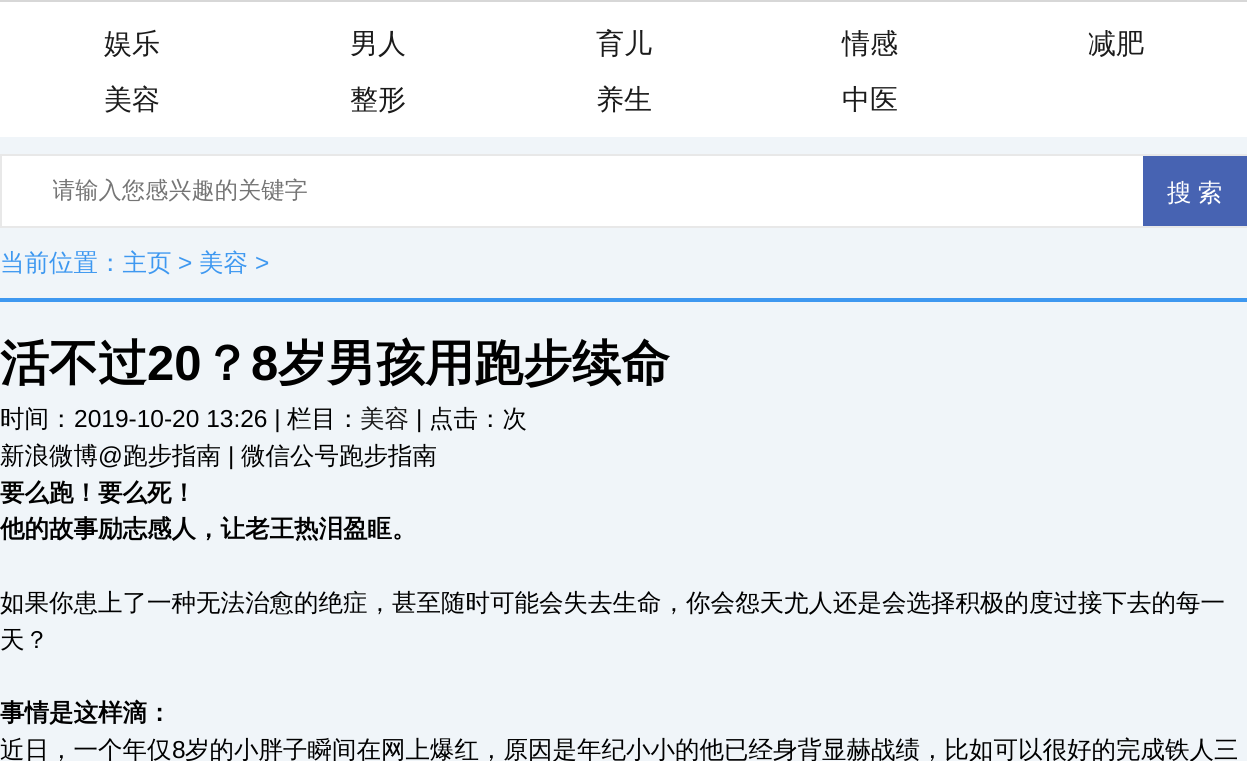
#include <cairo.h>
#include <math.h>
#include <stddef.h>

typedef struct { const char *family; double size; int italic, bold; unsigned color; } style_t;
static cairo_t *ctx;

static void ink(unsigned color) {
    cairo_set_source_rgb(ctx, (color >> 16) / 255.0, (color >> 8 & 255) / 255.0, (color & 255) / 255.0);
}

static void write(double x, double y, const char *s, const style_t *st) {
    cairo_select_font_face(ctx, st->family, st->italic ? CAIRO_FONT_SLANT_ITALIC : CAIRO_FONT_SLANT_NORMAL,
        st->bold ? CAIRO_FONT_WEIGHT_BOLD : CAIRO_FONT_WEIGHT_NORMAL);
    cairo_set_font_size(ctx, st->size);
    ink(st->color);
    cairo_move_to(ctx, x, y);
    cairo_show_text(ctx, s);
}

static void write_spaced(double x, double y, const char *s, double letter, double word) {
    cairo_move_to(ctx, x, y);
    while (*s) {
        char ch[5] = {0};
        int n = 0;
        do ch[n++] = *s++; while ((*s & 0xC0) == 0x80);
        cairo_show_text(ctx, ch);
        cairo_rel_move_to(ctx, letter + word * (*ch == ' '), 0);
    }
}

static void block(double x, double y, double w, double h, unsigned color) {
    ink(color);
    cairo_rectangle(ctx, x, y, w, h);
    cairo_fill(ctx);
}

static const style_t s1 = {"WenQuanYi Zen Hei Medium", 28, 0, 0, 0x1b1b1b};
static const style_t s2 = {"WenQuanYi Zen Hei Medium", 23.25, 0, 0, 0x757575};
static const style_t s3 = {"WenQuanYi Zen Hei Medium", 24.5, 0, 0, 0x3e98f0};
static const style_t s4 = {"Liberation Sans", 24.5, 0, 0, 0x3e98f0};
static const style_t s5 = {"WenQuanYi Zen Hei", 49, 0, 1, 0x000000};
static const style_t s6 = {"Liberation Sans", 49, 0, 1, 0x000000};
static const style_t s7 = {"WenQuanYi Zen Hei Medium", 24.5, 0, 0, 0x000000};
static const style_t s8 = {"Liberation Sans", 24.5, 0, 0, 0x000000};
static const style_t s9 = {"WenQuanYi Zen Hei Medium", 24.5, 0, 0, 0x1b1b1b};
static const style_t s10 = {"WenQuanYi Zen Hei", 24.5, 0, 1, 0x000000};

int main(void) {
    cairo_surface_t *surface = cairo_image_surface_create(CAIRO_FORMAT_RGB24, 1247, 761);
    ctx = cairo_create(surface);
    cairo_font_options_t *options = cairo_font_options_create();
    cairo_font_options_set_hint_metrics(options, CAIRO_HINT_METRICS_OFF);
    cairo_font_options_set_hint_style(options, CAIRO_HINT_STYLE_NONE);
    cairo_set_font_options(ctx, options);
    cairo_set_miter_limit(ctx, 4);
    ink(0xf0f5f9);
    cairo_paint(ctx);
    block(0, 2, 1247, 135, 0xffffff);
    block(0, 0, 1247, 2, 0xd7d7d7);
    write(104, 53, "娱乐", &s1);
    write(350, 53, "男人", &s1);
    write(596, 53, "育儿", &s1);
    write(842, 53, "情感", &s1);
    write(1088, 53, "减肥", &s1);
    write(104, 109, "美容", &s1);
    write(350, 109, "整形", &s1);
    write(596, 109, "养生", &s1);
    write(842, 109, "中医", &s1);
    block(2, 156, 1141, 70, 0xffffff);
    cairo_rectangle(ctx, 1, 155, 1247, 72);
    ink(0xe8e8e8);
    cairo_stroke(ctx);
    cairo_save(ctx);
    cairo_rectangle(ctx, 53, 175, 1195, 32);
    cairo_clip(ctx);
    write(52, 198, "请输入您感兴趣的关键字", &s2);
    cairo_restore(ctx);
    block(1143, 156, 104, 70, 0x4763b2);
    cairo_set_font_size(ctx, 24.5);
    ink(0xffffff);
    write_spaced(1167, 201, "搜 索", 0, -1);
    block(0, 298, 1247, 4, 0x3e98f0);
    write(0, 271, "当前位置：主页", &s3);
    write(178, 271, ">", &s4);
    write(199, 271, "美容", &s3);
    write(255, 271, ">", &s4);
    write(0, 380, "活不过", &s5);
    write(147, 380, "20", &s6);
    write(202, 380, "？", &s5);
    write(251, 380, "8", &s6);
    write(278, 380, "岁男孩用跑步续命", &s5);
    write(0, 427, "时间：", &s7);
    write(74, 427, "2019-10-20 13:26 |", &s8);
    write(287, 427, "栏目：", &s7);
    write(360, 427, "美容", &s9);
    write(416, 427, "|", &s8);
    write(429, 427, "点击：次", &s7);
    write(0, 464, "新浪微博", &s7);
    write(98, 464, "@", &s8);
    write(123, 464, "跑步指南", &s7);
    write(228, 464, "|", &s8);
    write(241, 464, "微信公号跑步指南", &s7);
    write(0, 501, "要么跑！要么死！", &s10);
    write(0, 537, "他的故事励志感人，让老王热泪盈眶。", &s10);
    write(0, 611, "如果你患上了一种无法治愈的绝症，甚至随时可能会失去生命，你会怨天尤人还是会选择积极的度过接下去的每一", &s7);
    write(0, 648, "天？", &s7);
    write(0, 721, "事情是这样滴：", &s10);
    write(0, 758, "近日，一个年仅", &s7);
    write(172, 758, "8", &s8);
    write(185, 758, "岁的小胖子瞬间在网上爆红，原因是年纪小小的他已经身背显赫战绩，比如可以很好的完成铁人三", &s7);
    cairo_surface_write_to_png(surface, "screenshot.png");
    cairo_font_options_destroy(options);
    cairo_destroy(ctx);
    cairo_surface_destroy(surface);
    return 0;
}
